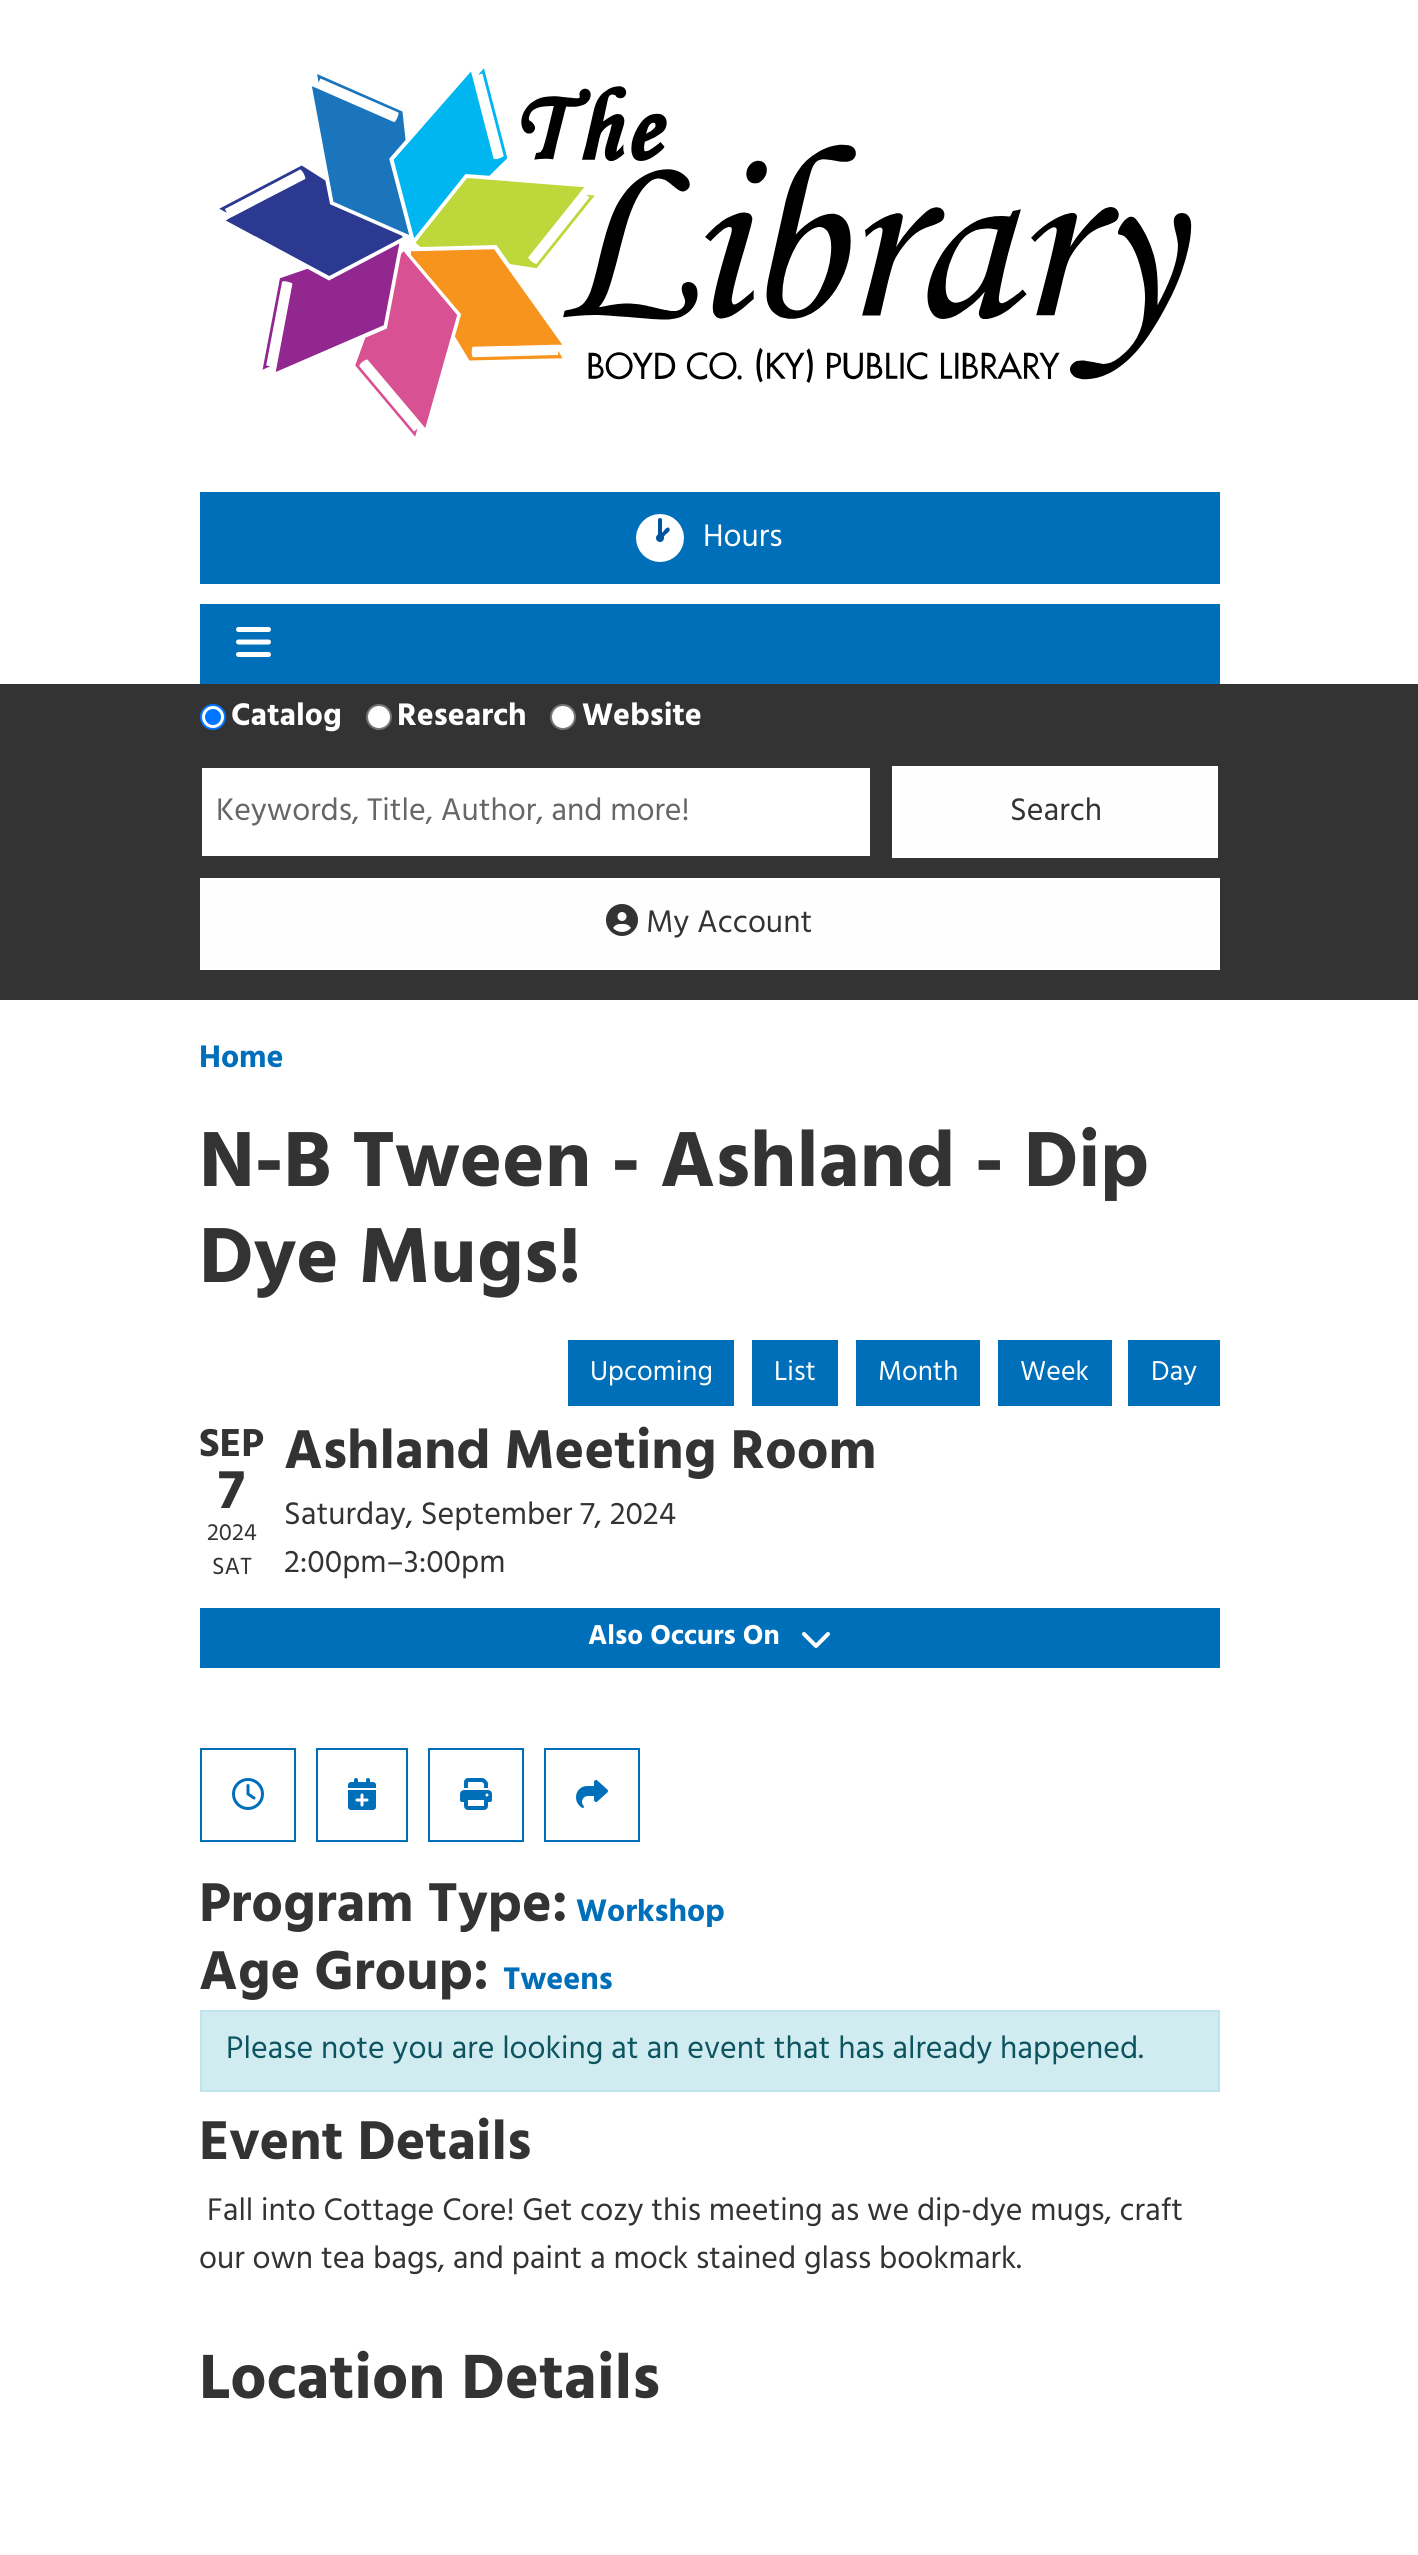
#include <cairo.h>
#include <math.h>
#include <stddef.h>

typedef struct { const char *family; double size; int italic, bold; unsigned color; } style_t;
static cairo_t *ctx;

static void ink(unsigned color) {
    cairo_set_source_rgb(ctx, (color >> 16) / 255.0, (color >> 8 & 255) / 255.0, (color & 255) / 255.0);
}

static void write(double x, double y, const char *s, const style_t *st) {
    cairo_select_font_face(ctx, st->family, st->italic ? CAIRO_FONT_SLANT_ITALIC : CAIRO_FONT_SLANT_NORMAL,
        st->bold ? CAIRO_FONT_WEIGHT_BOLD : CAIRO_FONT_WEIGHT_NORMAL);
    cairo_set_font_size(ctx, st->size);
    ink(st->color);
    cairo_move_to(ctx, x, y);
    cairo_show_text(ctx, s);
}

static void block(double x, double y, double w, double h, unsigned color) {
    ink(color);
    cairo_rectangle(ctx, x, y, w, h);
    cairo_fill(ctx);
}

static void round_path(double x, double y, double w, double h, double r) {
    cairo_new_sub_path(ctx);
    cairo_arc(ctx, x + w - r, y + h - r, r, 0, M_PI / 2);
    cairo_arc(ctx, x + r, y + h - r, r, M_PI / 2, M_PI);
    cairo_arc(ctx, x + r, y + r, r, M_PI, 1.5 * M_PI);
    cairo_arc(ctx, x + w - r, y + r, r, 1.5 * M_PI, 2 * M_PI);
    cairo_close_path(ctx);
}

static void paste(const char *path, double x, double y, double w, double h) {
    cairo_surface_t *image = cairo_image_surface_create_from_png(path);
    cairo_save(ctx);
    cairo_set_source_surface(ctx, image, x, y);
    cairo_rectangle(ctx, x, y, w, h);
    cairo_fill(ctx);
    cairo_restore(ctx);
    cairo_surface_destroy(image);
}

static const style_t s1 = {"Hind", 32, 0, 0, 0xffffff};
static const style_t s2 = {"Hind", 32, 0, 1, 0xffffff};
static const style_t s3 = {"Hind", 32, 0, 0, 0x666666};
static const style_t s4 = {"Hind", 32, 0, 0, 0x333333};
static const style_t s5 = {"Hind", 32, 0, 1, 0x006fb9};
static const style_t s6 = {"Hind", 80, 0, 1, 0x333333};
static const style_t s7 = {"Hind", 28, 0, 0, 0xffffff};
static const style_t s8 = {"Hind", 40, 0, 1, 0x333333};
static const style_t s9 = {"Hind", 56, 0, 1, 0x333333};
static const style_t s10 = {"Hind", 24, 0, 0, 0x333333};
static const style_t s11 = {"Hind", 28, 0, 1, 0xffffff};
static const style_t s12 = {"Hind", 32, 0, 0, 0x0c5460};
static const style_t s13 = {"Hind", 64, 0, 1, 0x333333};

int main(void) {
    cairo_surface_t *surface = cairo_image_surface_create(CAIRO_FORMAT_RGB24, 1418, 2555);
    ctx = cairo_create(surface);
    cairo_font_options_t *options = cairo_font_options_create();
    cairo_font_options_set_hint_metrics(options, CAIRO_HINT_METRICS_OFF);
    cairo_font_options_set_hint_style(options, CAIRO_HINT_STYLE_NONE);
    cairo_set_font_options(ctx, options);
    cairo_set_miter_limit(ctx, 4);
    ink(0xffffff);
    cairo_paint(ctx);
    paste("pic1.png", 219, 68, 973, 369);
    block(200, 492, 1020, 92, 0x006fb9);
    ink(0x00549f);
    cairo_arc(ctx, 660, 538, 14, 0, 2 * M_PI);
    cairo_fill_preserve(ctx);
    ink(0xffffff);
    cairo_set_line_width(ctx, 20);
    cairo_stroke(ctx);
    ink(0x00549f);
    round_path(658, 518, 4, 20, 2);
    cairo_fill(ctx);
    cairo_new_path(ctx);
    cairo_move_to(ctx, 669, 528);
    cairo_curve_to(ctx, 671.5, 530.5, 667, 533.5, 665.5, 534.5);
    cairo_curve_to(ctx, 664.5, 536, 661.5, 540.5, 659, 538);
    cairo_curve_to(ctx, 657, 536, 661.5, 533, 663, 532);
    cairo_curve_to(ctx, 664, 530.5, 667, 526, 669, 528);
    cairo_close_path(ctx);
    cairo_fill(ctx);
    write(703, 546, "Hours", &s1);
    block(200, 604, 1020, 80, 0x006fb9);
    paste("pic2.png", 236, 627, 35, 30);
    block(0, 684, 1418, 316, 0x333333);
    ink(0xffffff);
    cairo_arc(ctx, 213, 717, 12, 0, 2 * M_PI);
    cairo_fill_preserve(ctx);
    ink(0x0075ff);
    cairo_set_line_width(ctx, 2);
    cairo_stroke(ctx);
    cairo_arc(ctx, 213, 717, 8, 0, 2 * M_PI);
    cairo_fill(ctx);
    write(231, 725, "Catalog", &s2);
    cairo_new_path(ctx);
    cairo_arc(ctx, 379, 717, 12, 0, 2 * M_PI);
    cairo_fill_preserve(ctx);
    ink(0x767676);
    cairo_stroke(ctx);
    write(397, 725, "Research", &s2);
    cairo_new_path(ctx);
    cairo_arc(ctx, 563, 717, 12, 0, 2 * M_PI);
    cairo_fill_preserve(ctx);
    ink(0x767676);
    cairo_stroke(ctx);
    write(582, 725, "Website", &s2);
    block(202, 768, 668, 88, 0xffffff);
    write(216, 820, "Keywords, Title, Author, and more!", &s3);
    block(892, 766, 326, 92, 0xfefefe);
    write(1010, 820, "Search", &s4);
    block(200, 878, 1020, 92, 0xfefefe);
    paste("pic3.png", 606, 904, 32, 32);
    write(646, 932, "My Account", &s4);
    write(199, 1067, "Home", &s5);
    write(199, 1186, "N-B Tween - Ashland - Dip", &s6);
    write(199, 1282, "Dye Mugs!", &s6);
    block(568, 1340, 166, 66, 0x006fb9);
    write(590, 1380, "Upcoming", &s7);
    block(752, 1340, 86, 66, 0x006fb9);
    write(774, 1380, "List", &s7);
    block(856, 1340, 124, 66, 0x006fb9);
    write(878, 1380, "Month", &s7);
    block(998, 1340, 114, 66, 0x006fb9);
    write(1020, 1380, "Week", &s7);
    block(1128, 1340, 92, 66, 0x006fb9);
    write(1151, 1380, "Day", &s7);
    write(199, 1456, "SEP", &s8);
    write(218, 1508, "7", &s9);
    write(207, 1540, "2024", &s10);
    write(212, 1574, "SAT", &s10);
    write(284, 1468, "Ashland Meeting Room", &s9);
    write(284, 1524, "Saturday, September 7, 2024", &s4);
    write(284, 1572, "2:00pm–3:00pm", &s4);
    block(200, 1608, 1020, 60, 0x006fb9);
    write(588, 1644, "Also Occurs On", &s11);
    paste("pic4.png", 802, 1632, 28, 16);
    cairo_rectangle(ctx, 201, 1749, 94, 92);
    ink(0x006fb9);
    cairo_stroke(ctx);
    paste("pic5.png", 232, 1778, 32, 32);
    cairo_rectangle(ctx, 317, 1749, 90, 92);
    cairo_stroke(ctx);
    paste("pic6.png", 348, 1778, 28, 32);
    cairo_rectangle(ctx, 429, 1749, 94, 92);
    cairo_stroke(ctx);
    paste("pic7.png", 460, 1778, 32, 32);
    cairo_rectangle(ctx, 545, 1749, 94, 92);
    cairo_stroke(ctx);
    paste("pic8.png", 576, 1780, 32, 28);
    write(199, 1921, "Program Type:", &s9);
    write(576, 1921, "Workshop", &s5);
    write(199, 1989, "Age Group:", &s9);
    write(503, 1989, "Tweens", &s5);
    ink(0xd1ecf1);
    cairo_rectangle(ctx, 201, 2011, 1018, 80);
    cairo_fill_preserve(ctx);
    ink(0xbee5eb);
    cairo_stroke(ctx);
    write(226, 2058, "Please note you are looking at an event that has already happened.", &s12);
    write(199, 2159, "Event Details", &s9);
    write(207, 2220, "Fall into Cottage Core! Get cozy this meeting as we dip-dye mugs, craft", &s4);
    write(199, 2268, "our own tea bags, and paint a mock stained glass bookmark.", &s4);
    write(199, 2398, "Location Details", &s13);
    cairo_surface_write_to_png(surface, "screenshot.png");
    cairo_font_options_destroy(options);
    cairo_destroy(ctx);
    cairo_surface_destroy(surface);
    return 0;
}
